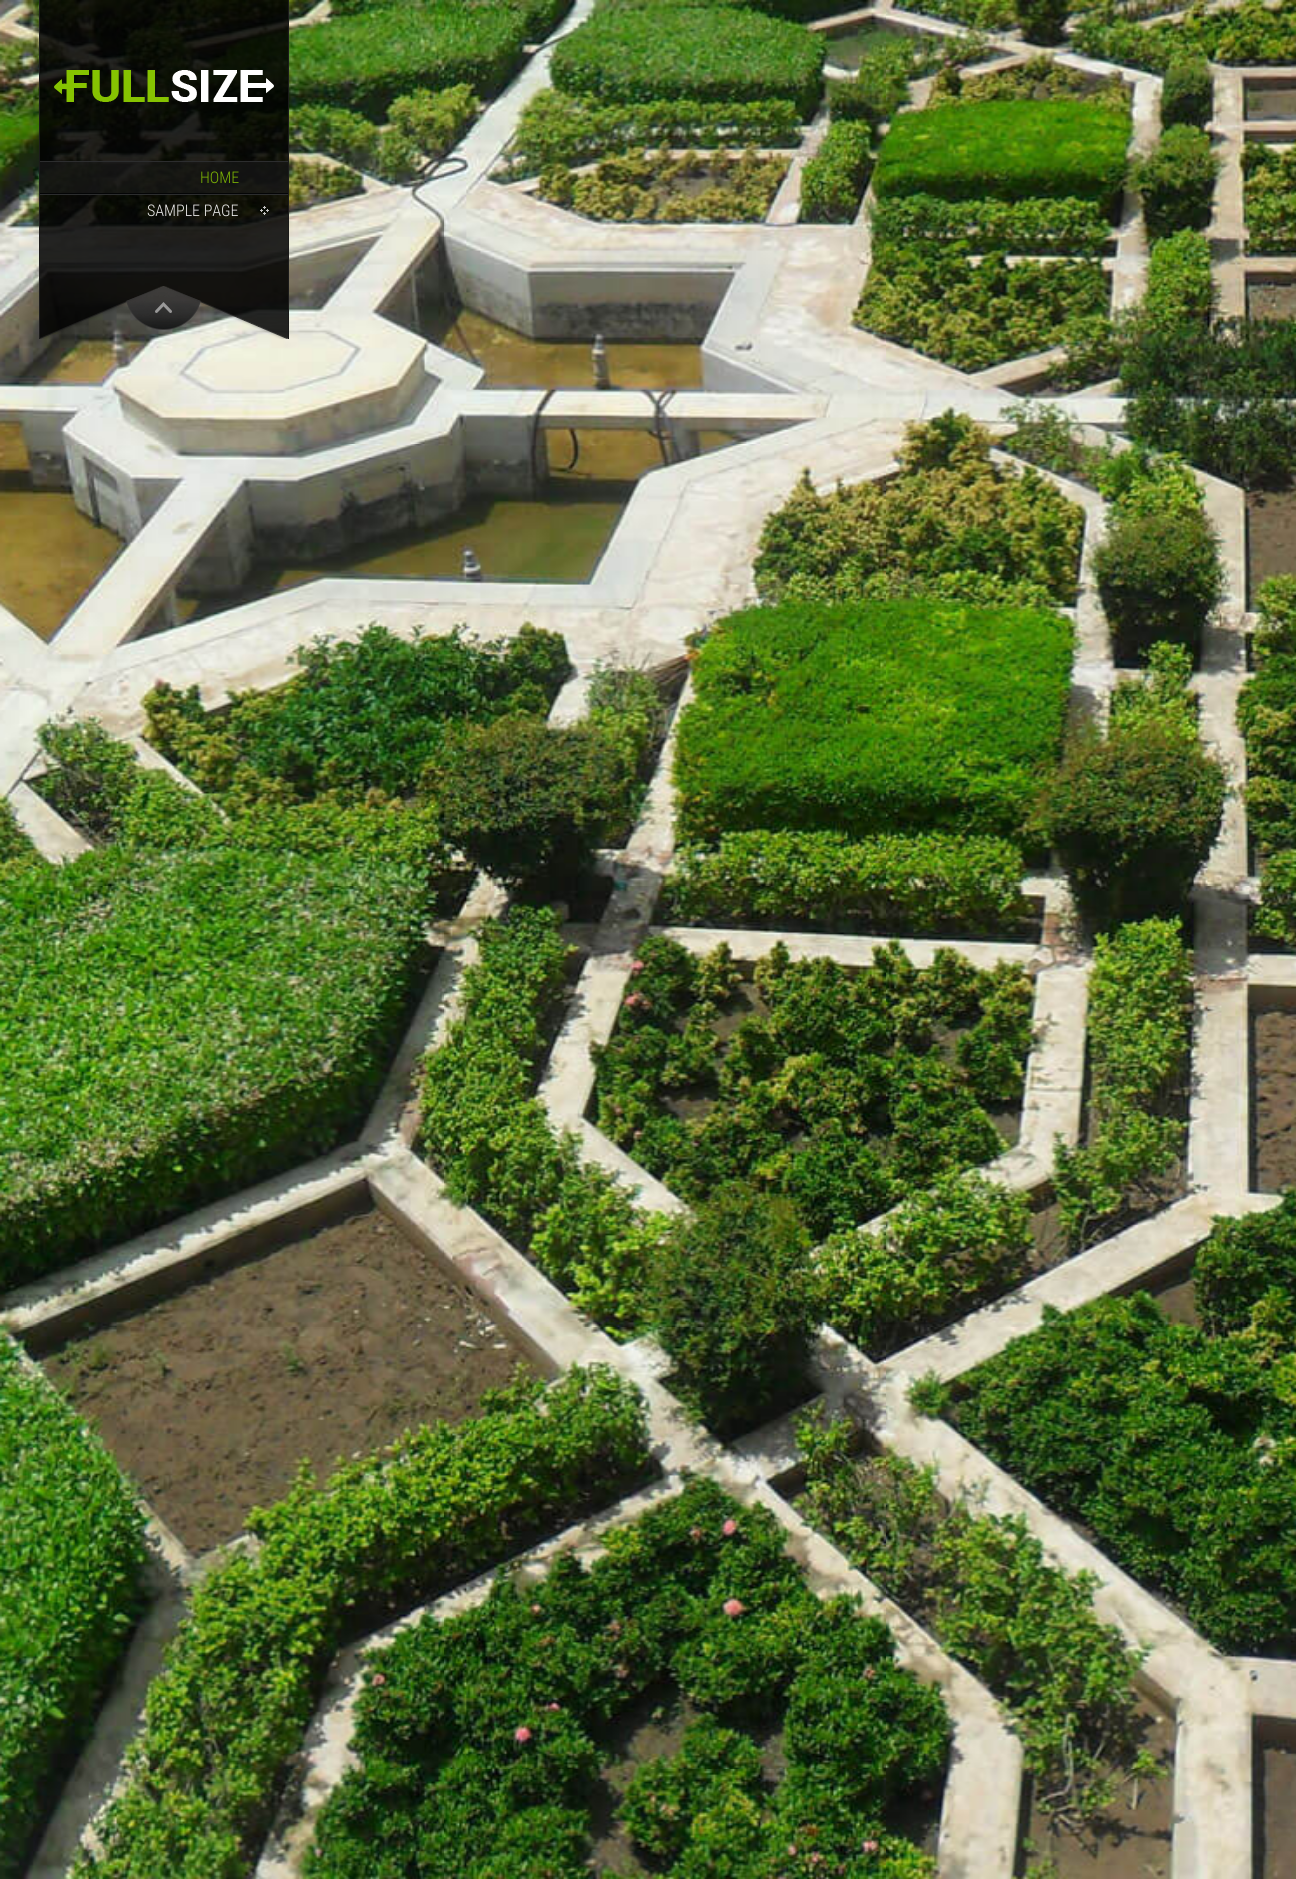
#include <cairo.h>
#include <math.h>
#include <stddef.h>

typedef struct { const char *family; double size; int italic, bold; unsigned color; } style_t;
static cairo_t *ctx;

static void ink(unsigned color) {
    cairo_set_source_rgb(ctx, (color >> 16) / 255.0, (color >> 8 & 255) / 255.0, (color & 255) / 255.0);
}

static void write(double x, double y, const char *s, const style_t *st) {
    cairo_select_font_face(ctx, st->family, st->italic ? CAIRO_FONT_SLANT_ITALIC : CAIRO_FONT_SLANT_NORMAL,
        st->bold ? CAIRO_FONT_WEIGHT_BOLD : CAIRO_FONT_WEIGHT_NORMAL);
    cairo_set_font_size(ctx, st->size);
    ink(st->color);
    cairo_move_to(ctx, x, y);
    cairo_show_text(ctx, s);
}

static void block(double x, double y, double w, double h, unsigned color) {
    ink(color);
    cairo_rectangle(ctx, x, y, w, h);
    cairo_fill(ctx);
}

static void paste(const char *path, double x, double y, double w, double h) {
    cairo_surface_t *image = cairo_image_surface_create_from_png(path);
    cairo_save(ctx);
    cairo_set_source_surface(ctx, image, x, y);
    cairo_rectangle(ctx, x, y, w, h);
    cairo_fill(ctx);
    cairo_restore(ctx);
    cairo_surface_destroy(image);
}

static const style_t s1 = {"Roboto Condensed Light", 16, 0, 0, 0x7bb303};
static const style_t s2 = {"Roboto Condensed Light", 16, 0, 0, 0xeeeded};

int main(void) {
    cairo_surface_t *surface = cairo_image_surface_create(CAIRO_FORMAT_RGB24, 1296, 1879);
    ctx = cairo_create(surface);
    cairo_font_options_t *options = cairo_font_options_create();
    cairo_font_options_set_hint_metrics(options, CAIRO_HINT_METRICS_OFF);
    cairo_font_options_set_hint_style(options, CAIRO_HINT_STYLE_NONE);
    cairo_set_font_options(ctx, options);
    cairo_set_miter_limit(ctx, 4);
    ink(0xffffff);
    cairo_paint(ctx);
    paste("pic1.png", 0, 0, 1296, 1879);
    block(288, 0, 1, 339, 0x1b1b1b);
    block(39, 0, 1, 339, 0x1b1b1b);
    cairo_set_source_rgba(ctx, 0, 0, 0, 0.85);
    cairo_rectangle(ctx, 40, 0, 248, 161);
    cairo_fill(ctx);
    paste("pic2.png", 54, 70, 220, 32);
    cairo_rectangle(ctx, 40, 162, 248, 124);
    cairo_fill(ctx);
    cairo_set_source_rgba(ctx, 0.106, 0.106, 0.106, 0.6);
    cairo_rectangle(ctx, 40, 162, 248, 31);
    cairo_fill(ctx);
    block(40, 161, 248, 1, 0x2c2d2e);
    block(40, 193, 248, 1, 0x040506);
    write(200, 183, "HOME", &s1);
    block(40, 194, 248, 1, 0x2c2d2e);
    paste("pic3.png", 260, 206, 9, 9);
    write(147, 216, "SAMPLE PAGE", &s2);
    paste("pic4.png", 40, 286, 248, 53);
    paste("pic5.png", 126, 286, 75, 44);
    cairo_surface_write_to_png(surface, "screenshot.png");
    cairo_font_options_destroy(options);
    cairo_destroy(ctx);
    cairo_surface_destroy(surface);
    return 0;
}
